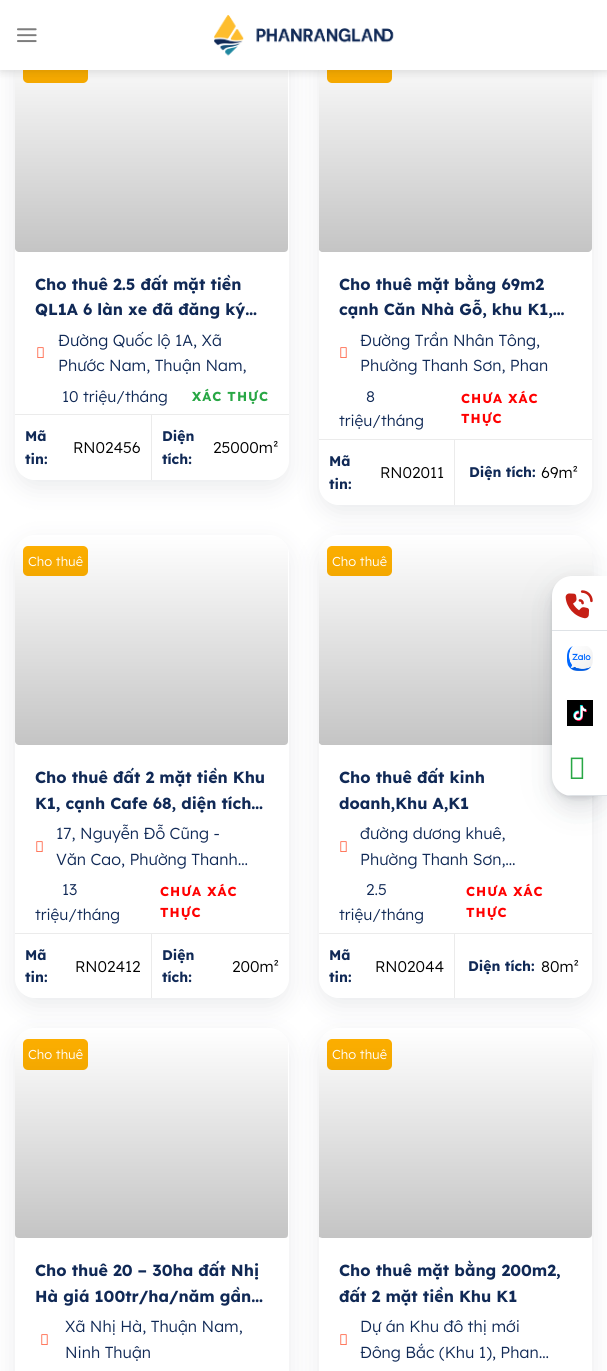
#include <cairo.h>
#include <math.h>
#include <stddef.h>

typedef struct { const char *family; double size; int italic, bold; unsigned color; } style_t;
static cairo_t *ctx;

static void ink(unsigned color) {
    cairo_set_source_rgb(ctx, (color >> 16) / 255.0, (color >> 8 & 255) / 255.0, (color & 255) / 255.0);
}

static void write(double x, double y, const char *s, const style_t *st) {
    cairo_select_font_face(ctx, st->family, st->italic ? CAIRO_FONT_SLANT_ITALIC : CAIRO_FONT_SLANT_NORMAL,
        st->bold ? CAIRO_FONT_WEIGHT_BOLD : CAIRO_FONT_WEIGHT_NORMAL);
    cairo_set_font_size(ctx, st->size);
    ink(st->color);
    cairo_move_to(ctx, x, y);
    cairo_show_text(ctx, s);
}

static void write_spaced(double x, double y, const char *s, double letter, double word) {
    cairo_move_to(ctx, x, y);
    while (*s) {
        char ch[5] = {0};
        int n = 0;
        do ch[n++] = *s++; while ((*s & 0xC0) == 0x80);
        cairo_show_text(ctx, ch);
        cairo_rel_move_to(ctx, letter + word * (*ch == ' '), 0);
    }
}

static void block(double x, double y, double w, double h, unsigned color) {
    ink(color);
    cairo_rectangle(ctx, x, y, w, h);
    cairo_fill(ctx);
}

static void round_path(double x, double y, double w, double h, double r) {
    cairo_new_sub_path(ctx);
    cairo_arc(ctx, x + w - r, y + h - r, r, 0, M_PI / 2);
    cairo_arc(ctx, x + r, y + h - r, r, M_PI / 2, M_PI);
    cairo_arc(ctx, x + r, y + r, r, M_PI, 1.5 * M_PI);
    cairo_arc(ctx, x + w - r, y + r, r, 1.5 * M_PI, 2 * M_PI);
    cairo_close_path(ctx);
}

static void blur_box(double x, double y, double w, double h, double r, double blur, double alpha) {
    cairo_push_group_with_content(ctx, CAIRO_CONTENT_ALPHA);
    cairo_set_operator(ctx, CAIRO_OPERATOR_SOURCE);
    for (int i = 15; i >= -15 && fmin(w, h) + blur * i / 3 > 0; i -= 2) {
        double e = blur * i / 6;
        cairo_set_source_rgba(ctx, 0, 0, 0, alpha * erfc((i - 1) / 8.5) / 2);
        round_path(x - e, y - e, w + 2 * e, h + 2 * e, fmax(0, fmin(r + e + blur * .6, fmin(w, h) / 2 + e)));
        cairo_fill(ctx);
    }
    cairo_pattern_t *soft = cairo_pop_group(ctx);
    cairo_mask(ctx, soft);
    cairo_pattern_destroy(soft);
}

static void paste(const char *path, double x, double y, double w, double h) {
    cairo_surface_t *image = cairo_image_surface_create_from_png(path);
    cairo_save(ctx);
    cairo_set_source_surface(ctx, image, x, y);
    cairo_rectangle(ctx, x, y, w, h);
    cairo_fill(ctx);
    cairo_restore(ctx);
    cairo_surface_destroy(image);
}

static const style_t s1 = {"Lexend", 16, 0, 1, 0x102956};
static const style_t s2 = {"Lexend Light", 16, 0, 0, 0x102956};
static const style_t s3 = {"Lexend Light", 15.5, 0, 0, 0x102956};
static const style_t s4 = {"Lexend", 14, 0, 1, 0x102956};
static const style_t s5 = {"Lexend Light", 15.5, 0, 0, 0x000000};
static const style_t s6 = {"Lexend Light", 13, 0, 0, 0xffffff};

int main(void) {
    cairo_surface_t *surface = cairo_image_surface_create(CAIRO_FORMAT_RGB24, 607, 1371);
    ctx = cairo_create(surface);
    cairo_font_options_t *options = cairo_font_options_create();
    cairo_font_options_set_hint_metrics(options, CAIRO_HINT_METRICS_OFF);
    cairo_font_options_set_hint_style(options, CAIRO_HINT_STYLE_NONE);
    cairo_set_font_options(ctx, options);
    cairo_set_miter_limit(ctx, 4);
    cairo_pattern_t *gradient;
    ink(0xffffff);
    cairo_paint(ctx);
    cairo_save(ctx);
    cairo_set_fill_rule(ctx, CAIRO_FILL_RULE_EVEN_ODD);
    cairo_new_path(ctx);
    cairo_move_to(ctx, 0, 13);
    cairo_line_to(ctx, 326, 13);
    cairo_line_to(ctx, 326, 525);
    cairo_line_to(ctx, 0, 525);
    cairo_close_path(ctx);
    cairo_move_to(ctx, 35, 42);
    cairo_line_to(ctx, 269, 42);
    cairo_curve_to(ctx, 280, 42, 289, 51, 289, 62);
    cairo_line_to(ctx, 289, 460);
    cairo_curve_to(ctx, 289, 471, 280, 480, 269, 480);
    cairo_line_to(ctx, 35, 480);
    cairo_curve_to(ctx, 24, 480, 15, 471, 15, 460);
    cairo_line_to(ctx, 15, 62);
    cairo_curve_to(ctx, 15, 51, 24, 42, 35, 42);
    cairo_close_path(ctx);
    cairo_clip(ctx);
    ink(0x959da5);
    blur_box(15, 50, 274, 438, 20, 12, 0.2);
    cairo_restore(ctx);
    ink(0xffb000);
    round_path(23, 52, 65, 31, 5);
    cairo_fill(ctx);
    gradient = cairo_pattern_create_linear(152, 42, 152, 252);
    cairo_pattern_add_color_stop_rgba(gradient, 0, 0, 0, 0, 0);
    cairo_pattern_add_color_stop_rgba(gradient, 1, 0, 0, 0, 0.23);
    cairo_set_source(ctx, gradient);
    cairo_pattern_destroy(gradient);
    cairo_new_path(ctx);
    cairo_move_to(ctx, 284, 252);
    cairo_curve_to(ctx, 287, 252, 288, 250, 288, 248);
    cairo_line_to(ctx, 288, 56);
    cairo_curve_to(ctx, 285, 48, 278, 42, 269, 42);
    cairo_line_to(ctx, 35, 42);
    cairo_curve_to(ctx, 24, 42, 15, 51, 15, 62);
    cairo_line_to(ctx, 15, 248);
    cairo_curve_to(ctx, 15, 250, 17, 252, 19, 252);
    cairo_close_path(ctx);
    cairo_fill(ctx);
    block(15, 414, 274, 1, 0xebebeb);
    cairo_save(ctx);
    cairo_set_fill_rule(ctx, CAIRO_FILL_RULE_EVEN_ODD);
    cairo_new_path(ctx);
    cairo_move_to(ctx, 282, 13);
    cairo_line_to(ctx, 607, 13);
    cairo_line_to(ctx, 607, 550);
    cairo_line_to(ctx, 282, 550);
    cairo_close_path(ctx);
    cairo_move_to(ctx, 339, 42);
    cairo_line_to(ctx, 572, 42);
    cairo_curve_to(ctx, 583, 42, 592, 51, 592, 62);
    cairo_line_to(ctx, 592, 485);
    cairo_curve_to(ctx, 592, 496, 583, 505, 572, 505);
    cairo_line_to(ctx, 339, 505);
    cairo_curve_to(ctx, 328, 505, 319, 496, 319, 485);
    cairo_line_to(ctx, 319, 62);
    cairo_curve_to(ctx, 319, 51, 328, 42, 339, 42);
    cairo_close_path(ctx);
    cairo_clip(ctx);
    ink(0x959da5);
    blur_box(319, 50, 273, 463, 20, 12, 0.2);
    cairo_restore(ctx);
    ink(0xffb000);
    round_path(327, 52, 65, 31, 5);
    cairo_fill(ctx);
    gradient = cairo_pattern_create_linear(455, 42, 455, 252);
    cairo_pattern_add_color_stop_rgba(gradient, 0, 0, 0, 0, 0);
    cairo_pattern_add_color_stop_rgba(gradient, 1, 0, 0, 0, 0.23);
    cairo_set_source(ctx, gradient);
    cairo_pattern_destroy(gradient);
    cairo_new_path(ctx);
    cairo_move_to(ctx, 588, 252);
    cairo_curve_to(ctx, 590, 252, 592, 250, 592, 248);
    cairo_line_to(ctx, 592, 62);
    cairo_curve_to(ctx, 592, 51, 583, 42, 572, 42);
    cairo_line_to(ctx, 339, 42);
    cairo_curve_to(ctx, 328, 42, 319, 51, 319, 62);
    cairo_line_to(ctx, 319, 250);
    cairo_curve_to(ctx, 320, 251, 321, 252, 322, 252);
    cairo_close_path(ctx);
    cairo_fill(ctx);
    ink(0x000000);
    blur_box(1, 1, 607, 70, 0, 5, 0.15);
    block(0, 0, 607, 70, 0xffffff);
    paste("pic1.png", 17, 28, 20, 15);
    paste("pic2.png", 214, 15, 180, 41);
    write(35, 290, "Cho thuê 2.5 đất mặt tiền", &s1);
    write(35, 315, "QL1A 6 làn xe đã đăng ký…", &s1);
    paste("pic3.png", 37, 347, 7, 11);
    write(58, 346, "Đường Quốc lộ 1A, Xã", &s2);
    write(58, 371, "Phước Nam, Thuận Nam,", &s2);
    write(62, 402, "10 triệu/tháng", &s3);
    cairo_select_font_face(ctx, "Lexend", CAIRO_FONT_SLANT_NORMAL, CAIRO_FONT_WEIGHT_BOLD);
    cairo_set_font_size(ctx, 13);
    ink(0x28a745);
    write_spaced(192, 401, "XÁC THỰC", 1, 0);
    block(151, 415, 1, 65, 0xebebeb);
    write(25, 441, "Mã", &s4);
    write(25, 464, "tin:", &s4);
    write(73, 453, "RN02456", &s5);
    write(162, 441, "Diện", &s4);
    write(162, 464, "tích:", &s4);
    write(213, 453, "25000m²", &s5);
    write(339, 290, "Cho thuê mặt bằng 69m2", &s1);
    write(339, 315, "cạnh Căn Nhà Gỗ, khu K1,…", &s1);
    paste("pic3.png", 340, 347, 7, 11);
    write(360, 346, "Đường Trần Nhân Tông,", &s2);
    write(360, 371, "Phường Thanh Sơn, Phan", &s2);
    write(366, 402, "8", &s3);
    write(339, 426, "triệu/tháng", &s3);
    cairo_select_font_face(ctx, "Lexend", CAIRO_FONT_SLANT_NORMAL, CAIRO_FONT_WEIGHT_BOLD);
    cairo_set_font_size(ctx, 13);
    ink(0xff0000);
    write_spaced(461, 403, "CHƯA XÁC", 1, 0);
    write_spaced(461, 423, "THỰC", 1, 0);
    block(319, 439, 273, 1, 0xebebeb);
    block(454, 440, 1, 65, 0xebebeb);
    write(329, 466, "Mã", &s4);
    write(329, 489, "tin:", &s4);
    write(380, 478, "RN02011", &s5);
    write(469, 477, "Diện tích:", &s4);
    write(541, 478, "69m²", &s5);
    cairo_save(ctx);
    cairo_set_fill_rule(ctx, CAIRO_FILL_RULE_EVEN_ODD);
    cairo_new_path(ctx);
    cairo_move_to(ctx, 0, 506);
    cairo_line_to(ctx, 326, 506);
    cairo_line_to(ctx, 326, 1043);
    cairo_line_to(ctx, 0, 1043);
    cairo_close_path(ctx);
    cairo_move_to(ctx, 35, 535);
    cairo_line_to(ctx, 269, 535);
    cairo_curve_to(ctx, 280, 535, 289, 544, 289, 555);
    cairo_line_to(ctx, 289, 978);
    cairo_curve_to(ctx, 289, 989, 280, 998, 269, 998);
    cairo_line_to(ctx, 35, 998);
    cairo_curve_to(ctx, 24, 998, 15, 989, 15, 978);
    cairo_line_to(ctx, 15, 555);
    cairo_curve_to(ctx, 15, 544, 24, 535, 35, 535);
    cairo_close_path(ctx);
    cairo_clip(ctx);
    ink(0x959da5);
    blur_box(15, 543, 274, 463, 20, 12, 0.2);
    cairo_restore(ctx);
    ink(0xffb000);
    round_path(23, 546, 65, 30, 5);
    cairo_fill(ctx);
    gradient = cairo_pattern_create_linear(152, 535, 152, 745);
    cairo_pattern_add_color_stop_rgba(gradient, 0, 0, 0, 0, 0);
    cairo_pattern_add_color_stop_rgba(gradient, 1, 0, 0, 0, 0.23);
    cairo_set_source(ctx, gradient);
    cairo_pattern_destroy(gradient);
    cairo_new_path(ctx);
    cairo_move_to(ctx, 284, 745);
    cairo_curve_to(ctx, 287, 745, 288, 743, 288, 741);
    cairo_line_to(ctx, 288, 549);
    cairo_curve_to(ctx, 285, 541, 278, 535, 269, 535);
    cairo_line_to(ctx, 35, 535);
    cairo_curve_to(ctx, 24, 535, 15, 544, 15, 555);
    cairo_line_to(ctx, 15, 741);
    cairo_curve_to(ctx, 15, 743, 17, 745, 19, 745);
    cairo_close_path(ctx);
    cairo_fill(ctx);
    write(28, 566, "Cho thuê", &s6);
    write(35, 783, "Cho thuê đất 2 mặt tiền Khu", &s1);
    write(35, 809, "K1, cạnh Cafe 68, diện tích…", &s1);
    paste("pic3.png", 36, 841, 7, 11);
    write(56, 839, "17, Nguyễn Đỗ Cũng -", &s2);
    write(56, 865, "Văn Cao, Phường Thanh…", &s2);
    write(62, 895, "13", &s3);
    write(35, 920, "triệu/tháng", &s3);
    cairo_select_font_face(ctx, "Lexend", CAIRO_FONT_SLANT_NORMAL, CAIRO_FONT_WEIGHT_BOLD);
    cairo_set_font_size(ctx, 13);
    ink(0xff0000);
    write_spaced(160, 896, "CHƯA XÁC", 1, 0);
    write_spaced(160, 917, "THỰC", 1, 0);
    block(15, 933, 274, 1, 0xebebeb);
    block(151, 934, 1, 64, 0xebebeb);
    write(25, 960, "Mã", &s4);
    write(25, 982, "tin:", &s4);
    write(75, 972, "RN02412", &s5);
    write(162, 960, "Diện", &s4);
    write(162, 982, "tích:", &s4);
    write(232, 972, "200m²", &s5);
    cairo_save(ctx);
    cairo_set_fill_rule(ctx, CAIRO_FILL_RULE_EVEN_ODD);
    cairo_new_path(ctx);
    cairo_move_to(ctx, 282, 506);
    cairo_line_to(ctx, 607, 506);
    cairo_line_to(ctx, 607, 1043);
    cairo_line_to(ctx, 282, 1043);
    cairo_close_path(ctx);
    cairo_move_to(ctx, 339, 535);
    cairo_line_to(ctx, 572, 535);
    cairo_curve_to(ctx, 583, 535, 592, 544, 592, 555);
    cairo_line_to(ctx, 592, 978);
    cairo_curve_to(ctx, 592, 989, 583, 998, 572, 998);
    cairo_line_to(ctx, 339, 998);
    cairo_curve_to(ctx, 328, 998, 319, 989, 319, 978);
    cairo_line_to(ctx, 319, 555);
    cairo_curve_to(ctx, 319, 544, 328, 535, 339, 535);
    cairo_close_path(ctx);
    cairo_clip(ctx);
    ink(0x959da5);
    blur_box(319, 543, 273, 463, 20, 12, 0.2);
    cairo_restore(ctx);
    ink(0xffb000);
    round_path(327, 546, 65, 30, 5);
    cairo_fill(ctx);
    gradient = cairo_pattern_create_linear(455, 535, 455, 745);
    cairo_pattern_add_color_stop_rgba(gradient, 0, 0, 0, 0, 0);
    cairo_pattern_add_color_stop_rgba(gradient, 1, 0, 0, 0, 0.23);
    cairo_set_source(ctx, gradient);
    cairo_pattern_destroy(gradient);
    cairo_new_path(ctx);
    cairo_move_to(ctx, 588, 745);
    cairo_curve_to(ctx, 590, 745, 592, 743, 592, 741);
    cairo_line_to(ctx, 592, 555);
    cairo_curve_to(ctx, 592, 544, 583, 535, 572, 535);
    cairo_line_to(ctx, 339, 535);
    cairo_curve_to(ctx, 328, 535, 319, 544, 319, 555);
    cairo_line_to(ctx, 319, 743);
    cairo_curve_to(ctx, 320, 744, 321, 745, 322, 745);
    cairo_close_path(ctx);
    cairo_fill(ctx);
    write(332, 566, "Cho thuê", &s6);
    write(339, 783, "Cho thuê đất kinh", &s1);
    write(339, 809, "doanh,Khu A,K1", &s1);
    paste("pic3.png", 340, 841, 7, 11);
    write(360, 839, "đường dương khuê,", &s2);
    write(360, 865, "Phường Thanh Sơn,…", &s2);
    write(366, 895, "2.5", &s3);
    write(339, 920, "triệu/tháng", &s3);
    cairo_select_font_face(ctx, "Lexend", CAIRO_FONT_SLANT_NORMAL, CAIRO_FONT_WEIGHT_BOLD);
    cairo_set_font_size(ctx, 13);
    ink(0xff0000);
    write_spaced(466, 896, "CHƯA XÁC", 1, 0);
    write_spaced(466, 917, "THỰC", 1, 0);
    block(319, 933, 273, 1, 0xebebeb);
    block(454, 934, 1, 64, 0xebebeb);
    write(329, 960, "Mã", &s4);
    write(329, 982, "tin:", &s4);
    write(375, 972, "RN02044", &s5);
    write(468, 971, "Diện tích:", &s4);
    write(541, 972, "80m²", &s5);
    cairo_save(ctx);
    cairo_set_fill_rule(ctx, CAIRO_FILL_RULE_EVEN_ODD);
    cairo_new_path(ctx);
    cairo_move_to(ctx, 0, 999);
    cairo_line_to(ctx, 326, 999);
    cairo_line_to(ctx, 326, 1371);
    cairo_line_to(ctx, 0, 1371);
    cairo_close_path(ctx);
    cairo_move_to(ctx, 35, 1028);
    cairo_line_to(ctx, 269, 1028);
    cairo_curve_to(ctx, 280, 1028, 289, 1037, 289, 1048);
    cairo_line_to(ctx, 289, 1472);
    cairo_curve_to(ctx, 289, 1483, 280, 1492, 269, 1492);
    cairo_line_to(ctx, 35, 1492);
    cairo_curve_to(ctx, 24, 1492, 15, 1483, 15, 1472);
    cairo_line_to(ctx, 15, 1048);
    cairo_curve_to(ctx, 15, 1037, 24, 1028, 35, 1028);
    cairo_close_path(ctx);
    cairo_clip(ctx);
    ink(0x959da5);
    blur_box(15, 1036, 274, 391, 20, 12, 0.2);
    cairo_restore(ctx);
    ink(0xffb000);
    round_path(23, 1039, 65, 31, 5);
    cairo_fill(ctx);
    gradient = cairo_pattern_create_linear(152, 1028, 152, 1238);
    cairo_pattern_add_color_stop_rgba(gradient, 0, 0, 0, 0, 0);
    cairo_pattern_add_color_stop_rgba(gradient, 1, 0, 0, 0, 0.23);
    cairo_set_source(ctx, gradient);
    cairo_pattern_destroy(gradient);
    cairo_new_path(ctx);
    cairo_move_to(ctx, 284, 1238);
    cairo_curve_to(ctx, 287, 1238, 288, 1237, 288, 1234);
    cairo_line_to(ctx, 288, 1042);
    cairo_curve_to(ctx, 285, 1034, 278, 1028, 269, 1028);
    cairo_line_to(ctx, 35, 1028);
    cairo_curve_to(ctx, 24, 1028, 15, 1037, 15, 1048);
    cairo_line_to(ctx, 15, 1234);
    cairo_curve_to(ctx, 15, 1237, 17, 1238, 19, 1238);
    cairo_close_path(ctx);
    cairo_fill(ctx);
    write(28, 1059, "Cho thuê", &s6);
    write(35, 1276, "Cho thuê 20 – 30ha đất Nhị", &s1);
    write(35, 1302, "Hà giá 100tr/ha/năm gần…", &s1);
    paste("pic3.png", 41, 1334, 7, 11);
    write(65, 1332, "Xã Nhị Hà, Thuận Nam,", &s2);
    write(65, 1358, "Ninh Thuận", &s2);
    cairo_save(ctx);
    cairo_set_fill_rule(ctx, CAIRO_FILL_RULE_EVEN_ODD);
    cairo_new_path(ctx);
    cairo_move_to(ctx, 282, 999);
    cairo_line_to(ctx, 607, 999);
    cairo_line_to(ctx, 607, 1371);
    cairo_line_to(ctx, 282, 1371);
    cairo_close_path(ctx);
    cairo_move_to(ctx, 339, 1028);
    cairo_line_to(ctx, 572, 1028);
    cairo_curve_to(ctx, 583, 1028, 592, 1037, 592, 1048);
    cairo_line_to(ctx, 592, 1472);
    cairo_curve_to(ctx, 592, 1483, 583, 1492, 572, 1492);
    cairo_line_to(ctx, 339, 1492);
    cairo_curve_to(ctx, 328, 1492, 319, 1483, 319, 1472);
    cairo_line_to(ctx, 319, 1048);
    cairo_curve_to(ctx, 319, 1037, 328, 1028, 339, 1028);
    cairo_close_path(ctx);
    cairo_clip(ctx);
    ink(0x959da5);
    blur_box(319, 1036, 273, 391, 20, 12, 0.2);
    cairo_restore(ctx);
    ink(0xffb000);
    round_path(327, 1039, 65, 31, 5);
    cairo_fill(ctx);
    gradient = cairo_pattern_create_linear(455, 1028, 455, 1238);
    cairo_pattern_add_color_stop_rgba(gradient, 0, 0, 0, 0, 0);
    cairo_pattern_add_color_stop_rgba(gradient, 1, 0, 0, 0, 0.23);
    cairo_set_source(ctx, gradient);
    cairo_pattern_destroy(gradient);
    cairo_new_path(ctx);
    cairo_move_to(ctx, 588, 1238);
    cairo_curve_to(ctx, 590, 1238, 592, 1237, 592, 1234);
    cairo_line_to(ctx, 592, 1048);
    cairo_curve_to(ctx, 592, 1037, 583, 1028, 572, 1028);
    cairo_line_to(ctx, 339, 1028);
    cairo_curve_to(ctx, 328, 1028, 319, 1037, 319, 1048);
    cairo_line_to(ctx, 319, 1237);
    cairo_line_to(ctx, 322, 1238);
    cairo_close_path(ctx);
    cairo_fill(ctx);
    write(332, 1059, "Cho thuê", &s6);
    write(339, 1276, "Cho thuê mặt bằng 200m2,", &s1);
    write(339, 1302, "đất 2 mặt tiền Khu K1", &s1);
    paste("pic3.png", 340, 1334, 7, 11);
    write(360, 1332, "Dự án Khu đô thị mới", &s2);
    write(360, 1358, "Đông Bắc (Khu 1), Phan…", &s2);
    ink(0x5a6169);
    blur_box(552, 578, 55, 220, 20, 1.5, 0.1);
    blur_box(552, 580, 55, 220, 20, 4, 0.12);
    blur_box(552, 591, 55, 220, 20, 11, 0.1);
    blur_box(552, 584, 55, 220, 20, 17.5, 0.1);
    ink(0xffffff);
    cairo_new_path(ctx);
    cairo_move_to(ctx, 572, 576);
    cairo_line_to(ctx, 607, 576);
    cairo_line_to(ctx, 607, 796);
    cairo_line_to(ctx, 572, 796);
    cairo_curve_to(ctx, 561, 796, 552, 787, 552, 776);
    cairo_line_to(ctx, 552, 596);
    cairo_curve_to(ctx, 552, 585, 561, 576, 572, 576);
    cairo_close_path(ctx);
    cairo_fill(ctx);
    block(552, 630, 55, 1, 0xdee2e6);
    paste("pic4.png", 565, 590, 28, 29);
    paste("pic5.png", 567, 646, 26, 25);
    paste("pic6.png", 567, 700, 26, 26);
    cairo_save(ctx);
    cairo_new_path(ctx);
    cairo_move_to(ctx, 572, 576);
    cairo_line_to(ctx, 607, 576);
    cairo_line_to(ctx, 607, 796);
    cairo_line_to(ctx, 572, 796);
    cairo_curve_to(ctx, 561, 796, 552, 787, 552, 776);
    cairo_line_to(ctx, 552, 596);
    cairo_curve_to(ctx, 552, 585, 561, 576, 572, 576);
    cairo_close_path(ctx);
    cairo_clip(ctx);
    block(566, 795, 41, 1, 0xdee2e6);
    cairo_restore(ctx);
    paste("pic7.png", 570, 757, 14, 22);
    cairo_surface_write_to_png(surface, "screenshot.png");
    cairo_font_options_destroy(options);
    cairo_destroy(ctx);
    cairo_surface_destroy(surface);
    return 0;
}
